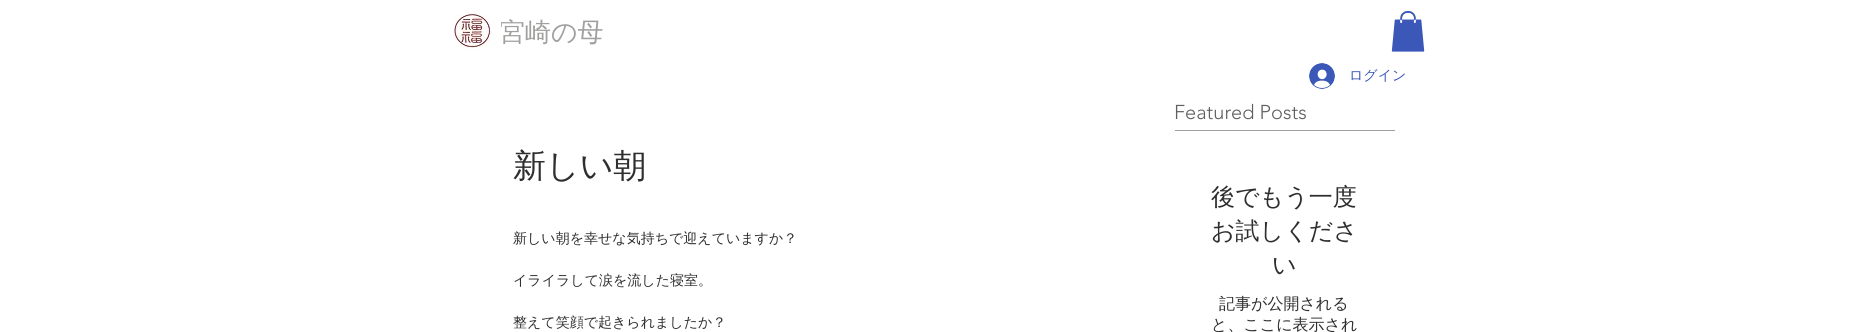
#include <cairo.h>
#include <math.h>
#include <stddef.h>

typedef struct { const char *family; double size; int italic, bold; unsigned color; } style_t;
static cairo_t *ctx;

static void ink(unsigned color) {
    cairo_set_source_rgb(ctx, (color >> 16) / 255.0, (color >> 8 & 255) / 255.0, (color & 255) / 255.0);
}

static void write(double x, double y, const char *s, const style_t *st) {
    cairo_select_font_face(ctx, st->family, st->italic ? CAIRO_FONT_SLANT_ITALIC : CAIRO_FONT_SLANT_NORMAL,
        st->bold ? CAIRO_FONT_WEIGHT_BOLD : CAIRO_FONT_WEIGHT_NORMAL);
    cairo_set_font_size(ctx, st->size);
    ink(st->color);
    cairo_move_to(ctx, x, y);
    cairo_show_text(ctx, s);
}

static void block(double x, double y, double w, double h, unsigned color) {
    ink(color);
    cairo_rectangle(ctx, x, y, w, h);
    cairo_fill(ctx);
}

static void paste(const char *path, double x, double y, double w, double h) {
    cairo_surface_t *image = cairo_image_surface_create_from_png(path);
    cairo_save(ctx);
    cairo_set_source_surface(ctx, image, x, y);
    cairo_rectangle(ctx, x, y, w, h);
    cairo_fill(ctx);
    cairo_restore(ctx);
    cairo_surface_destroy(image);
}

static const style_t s1 = {"WenQuanYi Zen Hei Medium", 26, 0, 0, 0xa0a09f};
static const style_t s2 = {"WenQuanYi Zen Hei Medium", 14, 0, 0, 0x3b58b8};
static const style_t s3 = {"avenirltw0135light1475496 Light", 20, 0, 0, 0x605e5e};
static const style_t s4 = {"WenQuanYi Zen Hei Medium", 33, 0, 0, 0x2f2e2e};
static const style_t s5 = {"WenQuanYi Zen Hei Medium", 14, 0, 0, 0x2f2e2e};
static const style_t s6 = {"WenQuanYi Zen Hei Medium", 24, 0, 0, 0x2f2e2e};
static const style_t s7 = {"WenQuanYi Zen Hei Medium", 16, 0, 0, 0x2f2e2e};

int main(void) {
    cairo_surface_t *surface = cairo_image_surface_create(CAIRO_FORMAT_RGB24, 1870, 332);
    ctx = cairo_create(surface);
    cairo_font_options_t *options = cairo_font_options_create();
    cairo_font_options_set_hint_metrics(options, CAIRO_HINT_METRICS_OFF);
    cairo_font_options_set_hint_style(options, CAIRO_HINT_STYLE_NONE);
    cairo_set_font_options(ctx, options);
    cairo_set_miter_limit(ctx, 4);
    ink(0xffffff);
    cairo_paint(ctx);
    write(499, 41, "宮崎の母", &s1);
    paste("pic1.png", 453, 11, 48, 40);
    paste("pic2.png", 1391, 11, 34, 41);
    paste("pic3.png", 1309, 63, 26, 26);
    write(1349, 80, "ログイン", &s2);
    write(1174, 119, "Featured Posts", &s3);
    block(1175, 130, 220, 1, 0xa0a09f);
    write(513, 177, "新しい朝", &s4);
    write(513, 243, "新しい朝を幸せな気持ちで迎えていますか？", &s5);
    write(513, 285, "イライラして涙を流した寝室。", &s5);
    write(513, 327, "整えて笑顔で起きられましたか？", &s5);
    write(1211, 205, "後でもう一度", &s6);
    write(1211, 239, "お試しくださ", &s6);
    write(1272, 273, "い", &s6);
    write(1219, 309, "記事が公開される", &s7);
    write(1211, 330, "と、ここに表示され", &s7);
    cairo_surface_write_to_png(surface, "screenshot.png");
    cairo_font_options_destroy(options);
    cairo_destroy(ctx);
    cairo_surface_destroy(surface);
    return 0;
}
